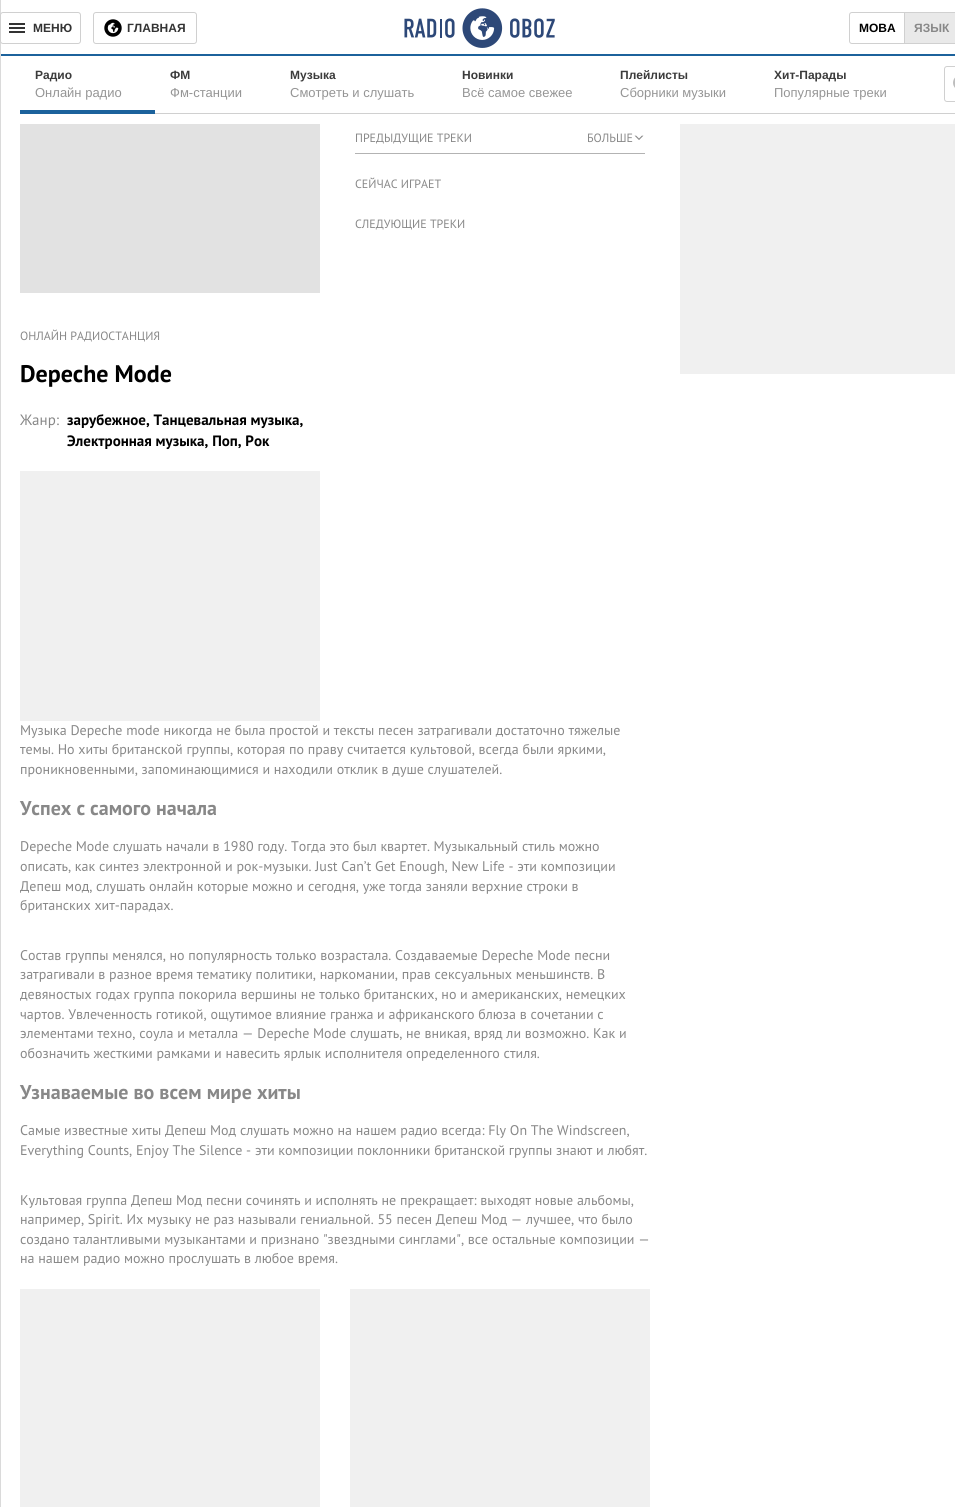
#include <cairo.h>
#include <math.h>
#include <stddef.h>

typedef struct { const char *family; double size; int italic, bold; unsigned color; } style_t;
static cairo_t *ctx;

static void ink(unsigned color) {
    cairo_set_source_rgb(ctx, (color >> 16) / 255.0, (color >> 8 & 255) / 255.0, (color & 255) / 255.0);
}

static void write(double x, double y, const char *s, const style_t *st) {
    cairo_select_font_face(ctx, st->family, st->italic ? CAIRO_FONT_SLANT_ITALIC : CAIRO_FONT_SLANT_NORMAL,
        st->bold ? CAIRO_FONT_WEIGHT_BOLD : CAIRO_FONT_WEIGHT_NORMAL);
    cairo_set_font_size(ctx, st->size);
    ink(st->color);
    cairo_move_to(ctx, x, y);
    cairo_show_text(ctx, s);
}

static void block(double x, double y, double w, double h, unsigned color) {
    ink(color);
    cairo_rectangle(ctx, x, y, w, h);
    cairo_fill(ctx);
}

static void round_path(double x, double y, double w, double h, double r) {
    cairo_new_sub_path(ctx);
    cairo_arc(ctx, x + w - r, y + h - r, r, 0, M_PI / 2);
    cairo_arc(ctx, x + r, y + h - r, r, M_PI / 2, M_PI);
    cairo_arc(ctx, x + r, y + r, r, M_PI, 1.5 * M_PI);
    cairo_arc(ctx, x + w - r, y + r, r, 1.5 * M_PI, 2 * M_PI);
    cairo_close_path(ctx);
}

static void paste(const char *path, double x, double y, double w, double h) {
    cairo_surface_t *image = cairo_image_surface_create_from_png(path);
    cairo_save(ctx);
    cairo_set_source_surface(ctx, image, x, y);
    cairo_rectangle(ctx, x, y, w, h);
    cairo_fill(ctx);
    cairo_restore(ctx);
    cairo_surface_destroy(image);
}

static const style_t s1 = {"Liberation Sans", 12, 0, 1, 0x333333};
static const style_t s2 = {"Liberation Sans", 12, 0, 1, 0x000000};
static const style_t s3 = {"Liberation Sans", 12, 0, 1, 0x888888};
static const style_t s4 = {"Liberation Sans", 12, 0, 1, 0x3b3b3b};
static const style_t s5 = {"Liberation Sans", 13, 0, 0, 0x959595};
static const style_t s6 = {"PT Sans", 12, 0, 0, 0x888888};
static const style_t s7 = {"PT Sans", 24, 0, 1, 0x000000};
static const style_t s8 = {"PT Sans", 15, 0, 0, 0x888888};
static const style_t s9 = {"PT Sans", 15, 0, 1, 0x000000};
static const style_t s10 = {"PT Sans", 14, 0, 0, 0x888888};
static const style_t s11 = {"PT Sans", 20, 0, 1, 0x888888};

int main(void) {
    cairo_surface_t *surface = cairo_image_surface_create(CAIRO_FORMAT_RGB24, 955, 1507);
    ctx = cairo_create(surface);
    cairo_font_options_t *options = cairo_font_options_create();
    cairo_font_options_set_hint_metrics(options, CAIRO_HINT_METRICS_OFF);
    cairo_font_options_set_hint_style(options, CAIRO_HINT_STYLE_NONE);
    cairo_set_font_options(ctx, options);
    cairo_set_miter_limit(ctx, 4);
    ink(0xffffff);
    cairo_paint(ctx);
    block(0, 54, 955, 2, 0x1c629c);
    block(0, 0, 1, 1507, 0xdadada);
    ink(0xffffff);
    round_path(0.5, 12.5, 80, 31, 2.5);
    cairo_fill_preserve(ctx);
    ink(0xd0d0d0);
    cairo_set_line_width(ctx, 1);
    cairo_stroke(ctx);
    block(9, 23, 16, 2, 0x333333);
    block(9, 31, 16, 2, 0x333333);
    write(33, 32, "МЕНЮ", &s1);
    block(9, 27, 16, 2, 0x333333);
    round_path(93.5, 12.5, 103, 31, 2.5);
    ink(0xd0d0d0);
    cairo_stroke(ctx);
    paste("pic1.png", 104, 19, 18, 18);
    write(127, 32, "ГЛАВНАЯ", &s1);
    paste("pic2.png", 404, 8, 151, 40);
    cairo_new_path(ctx);
    cairo_move_to(ctx, 852, 12.5);
    cairo_line_to(ctx, 904.5, 12.5);
    cairo_line_to(ctx, 904.5, 43.5);
    cairo_line_to(ctx, 852, 43.5);
    cairo_curve_to(ctx, 850.5, 43.5, 849.5, 42.5, 849.5, 41);
    cairo_line_to(ctx, 849.5, 15);
    cairo_curve_to(ctx, 849.5, 13.5, 850.5, 12.5, 852, 12.5);
    cairo_close_path(ctx);
    ink(0xd0d0d0);
    cairo_stroke(ctx);
    write(859, 32, "МОВА", &s2);
    ink(0xe9e9e9);
    cairo_rectangle(ctx, 904.5, 12.5, 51, 31);
    cairo_fill_preserve(ctx);
    ink(0xd0d0d0);
    cairo_stroke(ctx);
    write(914, 32, "ЯЗЫК", &s3);
    block(155, 113, 800, 1, 0xd0d0d0);
    block(20, 110, 135, 4, 0x1c629c);
    write(35, 79, "Радио", &s4);
    write(35, 97, "Онлайн радио", &s5);
    write(170, 79, "ФМ", &s4);
    write(170, 97, "Фм-станции", &s5);
    write(290, 79, "Музыка", &s4);
    write(290, 97, "Смотреть и слушать", &s5);
    write(462, 79, "Новинки", &s4);
    write(462, 97, "Всё самое свежее", &s5);
    write(620, 79, "Плейлисты", &s4);
    write(620, 97, "Сборники музыки", &s5);
    write(774, 79, "Хит-Парады", &s4);
    write(774, 97, "Популярные треки", &s5);
    round_path(944.5, 66.5, 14, 35, 2.5);
    ink(0xd0d0d0);
    cairo_stroke(ctx);
    paste("pic3.png", 953, 77, 2, 11);
    block(355, 153, 290, 1, 0xb3b3b3);
    write(355, 142, "ПРЕДЫДУЩИЕ ТРЕКИ", &s6);
    write(587, 142, "БОЛЬШЕ", &s6);
    paste("pic4.png", 634, 135, 10, 5);
    write(355, 188, "СЕЙЧАС ИГРАЕТ", &s6);
    write(355, 228, "СЛЕДУЮЩИЕ ТРЕКИ", &s6);
    block(20, 124, 300, 169, 0xe2e2e2);
    write(20, 340, "ОНЛАЙН РАДИОСТАНЦИЯ", &s6);
    write(20, 382, "Depeche Mode", &s7);
    write(20, 425, "Жанр:", &s8);
    write(67, 425, "зарубежное, Танцевальная музыка,", &s9);
    write(67, 446, "Электронная музыка, Поп, Рок", &s9);
    block(20, 471, 300, 250, 0xf0f0f0);
    write(20, 735, "Музыка Depeche mode никогда не была простой и тексты песен затрагивали достаточно тяжелые", &s10);
    write(20, 754, "темы. Но хиты британской группы, которая по праву считается культовой, всегда были яркими,", &s10);
    write(20, 774, "проникновенными, запоминающимися и находили отклик в душе слушателей.", &s10);
    write(20, 815, "Успех с самого начала", &s11);
    write(20, 851, "Depeche Mode слушать начали в 1980 году. Тогда это был квартет. Музыкальный стиль можно", &s10);
    write(20, 871, "описать, как синтез электронной и рок-музыки. Just Can’t Get Enough, New Life - эти композиции", &s10);
    write(20, 891, "Депеш мод, слушать онлайн которые можно и сегодня, уже тогда заняли верхние строки в", &s10);
    write(20, 910, "британских хит-парадах.", &s10);
    write(20, 960, "Состав группы менялся, но популярность только возрастала. Создаваемые Depeche Mode песни", &s10);
    write(20, 979, "затрагивали в разное время тематику политики, наркомании, прав сексуальных меньшинств. В", &s10);
    write(20, 999, "девяностых годах группа покорила вершины не только британских, но и американских, немецких", &s10);
    write(20, 1019, "чартов. Увлеченность готикой, ощутимое влияние гранжа и африканского блюза в сочетании с", &s10);
    write(20, 1038, "элементами техно, соула и металла — Depeche Mode слушать, не вникая, вряд ли возможно. Как и", &s10);
    write(20, 1058, "обозначить жесткими рамками и навесить ярлык исполнителя определенного стиля.", &s10);
    write(20, 1099, "Узнаваемые во всем мире хиты", &s11);
    write(20, 1135, "Самые известные хиты Депеш Мод слушать можно на нашем радио всегда: Fly On The Windscreen,", &s10);
    write(20, 1155, "Everything Counts, Enjoy The Silence - эти композиции поклонники британской группы знают и любят.", &s10);
    write(20, 1205, "Культовая группа Депеш Мод песни сочинять и исполнять не прекращает: выходят новые альбомы,", &s10);
    write(20, 1224, "например, Spirit. Их музыку не раз называли гениальной. 55 песен Депеш Мод — лучшее, что было", &s10);
    write(20, 1244, "создано талантливыми музыкантами и признано \"звездными синглами\", все остальные композиции —", &s10);
    write(20, 1263, "на нашем радио можно прослушать в любое время.", &s10);
    block(20, 1289, 300, 218, 0xf0f0f0);
    block(350, 1289, 300, 218, 0xf0f0f0);
    block(680, 124, 275, 250, 0xf0f0f0);
    cairo_surface_write_to_png(surface, "screenshot.png");
    cairo_font_options_destroy(options);
    cairo_destroy(ctx);
    cairo_surface_destroy(surface);
    return 0;
}
